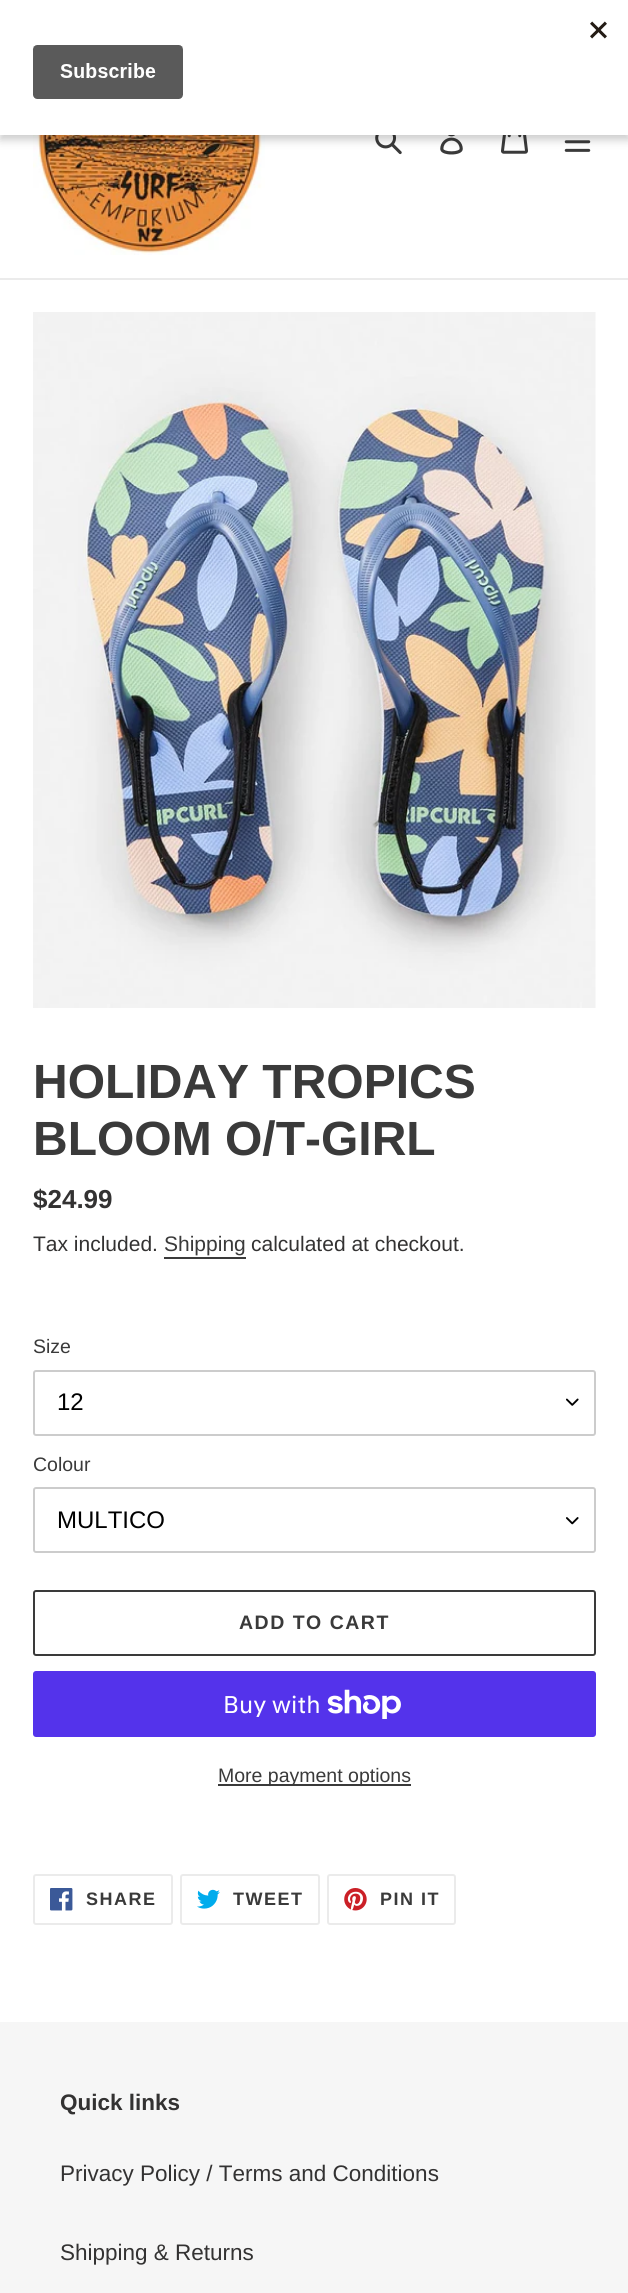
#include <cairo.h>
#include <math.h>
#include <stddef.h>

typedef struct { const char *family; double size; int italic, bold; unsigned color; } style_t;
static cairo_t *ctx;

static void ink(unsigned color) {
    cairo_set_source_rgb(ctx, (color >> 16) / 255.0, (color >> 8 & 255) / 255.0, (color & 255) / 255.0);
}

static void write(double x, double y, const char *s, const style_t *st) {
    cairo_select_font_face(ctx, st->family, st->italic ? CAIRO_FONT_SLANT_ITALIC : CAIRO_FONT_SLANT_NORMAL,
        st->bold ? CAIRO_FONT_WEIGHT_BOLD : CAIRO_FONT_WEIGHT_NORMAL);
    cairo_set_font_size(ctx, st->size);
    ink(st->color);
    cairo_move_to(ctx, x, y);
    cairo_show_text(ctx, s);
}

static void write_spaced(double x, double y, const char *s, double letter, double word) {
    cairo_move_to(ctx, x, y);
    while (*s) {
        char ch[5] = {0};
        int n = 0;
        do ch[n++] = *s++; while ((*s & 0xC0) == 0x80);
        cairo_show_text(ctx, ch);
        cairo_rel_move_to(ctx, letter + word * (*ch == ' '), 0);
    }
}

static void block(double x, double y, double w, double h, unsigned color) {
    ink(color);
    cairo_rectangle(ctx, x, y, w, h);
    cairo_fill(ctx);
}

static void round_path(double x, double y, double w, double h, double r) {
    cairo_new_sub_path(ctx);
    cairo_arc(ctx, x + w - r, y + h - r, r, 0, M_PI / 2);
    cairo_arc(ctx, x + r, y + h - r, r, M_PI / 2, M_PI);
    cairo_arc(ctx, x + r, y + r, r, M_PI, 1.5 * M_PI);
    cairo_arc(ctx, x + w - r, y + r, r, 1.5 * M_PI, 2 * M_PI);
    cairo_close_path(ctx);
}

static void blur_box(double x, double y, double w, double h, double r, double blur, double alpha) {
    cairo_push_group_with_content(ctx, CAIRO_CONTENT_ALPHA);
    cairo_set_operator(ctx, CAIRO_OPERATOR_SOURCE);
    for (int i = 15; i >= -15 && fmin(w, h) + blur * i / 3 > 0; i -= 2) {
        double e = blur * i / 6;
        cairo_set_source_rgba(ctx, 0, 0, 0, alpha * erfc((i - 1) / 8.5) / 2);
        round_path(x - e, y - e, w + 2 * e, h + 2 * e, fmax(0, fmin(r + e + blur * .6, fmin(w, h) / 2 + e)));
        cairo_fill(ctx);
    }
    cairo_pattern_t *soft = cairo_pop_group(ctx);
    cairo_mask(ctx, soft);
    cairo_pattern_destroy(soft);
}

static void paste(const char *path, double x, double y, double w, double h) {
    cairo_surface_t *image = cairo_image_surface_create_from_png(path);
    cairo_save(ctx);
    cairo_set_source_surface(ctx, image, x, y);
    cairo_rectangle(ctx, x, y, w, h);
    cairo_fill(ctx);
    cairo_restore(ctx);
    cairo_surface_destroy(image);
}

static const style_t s1 = {"Liberation Sans", 48, 0, 1, 0x3a3a3a};
static const style_t s2 = {"Liberation Sans", 26, 0, 1, 0x333232};
static const style_t s3 = {"Liberation Sans", 21, 0, 0, 0x333232};
static const style_t s4 = {"Liberation Sans", 21, 0, 0, 0x3a3a3a};
static const style_t s5 = {"Liberation Sans", 19.5, 0, 0, 0x3a3a3a};
static const style_t s6 = {"Liberation Sans", 24, 0, 0, 0x000000};
static const style_t s7 = {"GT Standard", 24, 0, 0, 0xffffff};
static const style_t s8 = {"Liberation Sans", 22.5, 0, 1, 0x333232};
static const style_t s9 = {"Liberation Sans", 22.5, 0, 0, 0x333232};

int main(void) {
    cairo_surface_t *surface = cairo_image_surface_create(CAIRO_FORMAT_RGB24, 628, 2293);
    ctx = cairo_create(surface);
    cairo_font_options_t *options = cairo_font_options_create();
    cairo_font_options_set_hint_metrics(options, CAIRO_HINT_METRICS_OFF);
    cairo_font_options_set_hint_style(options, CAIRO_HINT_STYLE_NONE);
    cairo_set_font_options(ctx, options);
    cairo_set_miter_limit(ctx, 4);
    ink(0xffffff);
    cairo_paint(ctx);
    paste("pic2.png", 33, 135, 232, 120);
    paste("pic3.png", 375, 135, 27, 20);
    paste("pic4.png", 440, 135, 23, 20);
    paste("pic5.png", 501, 135, 27, 19);
    paste("pic6.png", 564, 140, 27, 12);
    ink(0x000000);
    blur_box(0, 5, 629, 135, 0, 4.5, 0.2);
    block(0, 0, 628, 135, 0xffffff);
    paste("pic1.png", 32, 21, 575, 78);
    block(0, 278, 628, 2, 0xebebeb);
    paste("pic7.png", 33, 312, 563, 696);
    write(33, 1098, "HOLIDAY TROPICS", &s1);
    write(33, 1155, "BLOOM O/T-GIRL", &s1);
    write(33, 1208, "$24.99", &s2);
    write(33, 1251, "Tax included.", &s3);
    write(164, 1251, "Shipping", &s4);
    block(164, 1257, 82, 2, 0x3a3a3a);
    write(251, 1251, "calculated at checkout.", &s3);
    write(33, 1353, "Size", &s5);
    paste("pic8.png", 566, 1398, 13, 8);
    round_path(34, 1371, 561, 64, 2);
    ink(0xcccccc);
    cairo_stroke(ctx);
    write(57, 1410, "12", &s6);
    write(33, 1471, "Colour", &s5);
    paste("pic9.png", 566, 1517, 13, 8);
    round_path(34, 1488, 561, 64, 2);
    ink(0xcccccc);
    cairo_stroke(ctx);
    write(57, 1528, "MULTICO", &s6);
    round_path(34, 1591, 561, 64, 2);
    ink(0x3a3a3a);
    cairo_stroke(ctx);
    cairo_select_font_face(ctx, "Liberation Sans", CAIRO_FONT_SLANT_NORMAL, CAIRO_FONT_WEIGHT_BOLD);
    cairo_set_font_size(ctx, 19.5);
    write_spaced(239, 1629, "ADD TO CART", 1.5, 0);
    ink(0x5433eb);
    round_path(33, 1671, 563, 66, 3);
    cairo_fill(ctx);
    write(223, 1713, "Buy with", &s7);
    paste("pic10.png", 327, 1689, 74, 30);
    block(218, 1784, 193, 2, 0x3a3a3a);
    write(218, 1782, "More payment options", &s5);
    round_path(34, 1875, 138, 49, 2);
    ink(0xebebeb);
    cairo_stroke(ctx);
    paste("pic11.png", 50, 1888, 23, 23);
    cairo_select_font_face(ctx, "Liberation Sans", CAIRO_FONT_SLANT_NORMAL, CAIRO_FONT_WEIGHT_BOLD);
    cairo_set_font_size(ctx, 18);
    ink(0x3a3a3a);
    write_spaced(86, 1905, "SHARE", 1.5, 0);
    round_path(181, 1875, 138, 49, 2);
    ink(0xebebeb);
    cairo_stroke(ctx);
    paste("pic12.png", 197, 1889, 23, 20);
    ink(0x3a3a3a);
    write_spaced(233, 1905, "TWEET", 1.5, 0);
    round_path(328, 1875, 127, 49, 2);
    ink(0xebebeb);
    cairo_stroke(ctx);
    paste("pic13.png", 344, 1888, 23, 23);
    ink(0x3a3a3a);
    write_spaced(380, 1905, "PIN IT", 1.5, 0);
    block(0, 2022, 628, 271, 0xf6f6f6);
    write(60, 2110, "Quick links", &s8);
    write(60, 2181, "Privacy Policy / Terms and Conditions", &s9);
    write(60, 2260, "Shipping & Returns", &s9);
    cairo_surface_write_to_png(surface, "screenshot.png");
    cairo_font_options_destroy(options);
    cairo_destroy(ctx);
    cairo_surface_destroy(surface);
    return 0;
}
